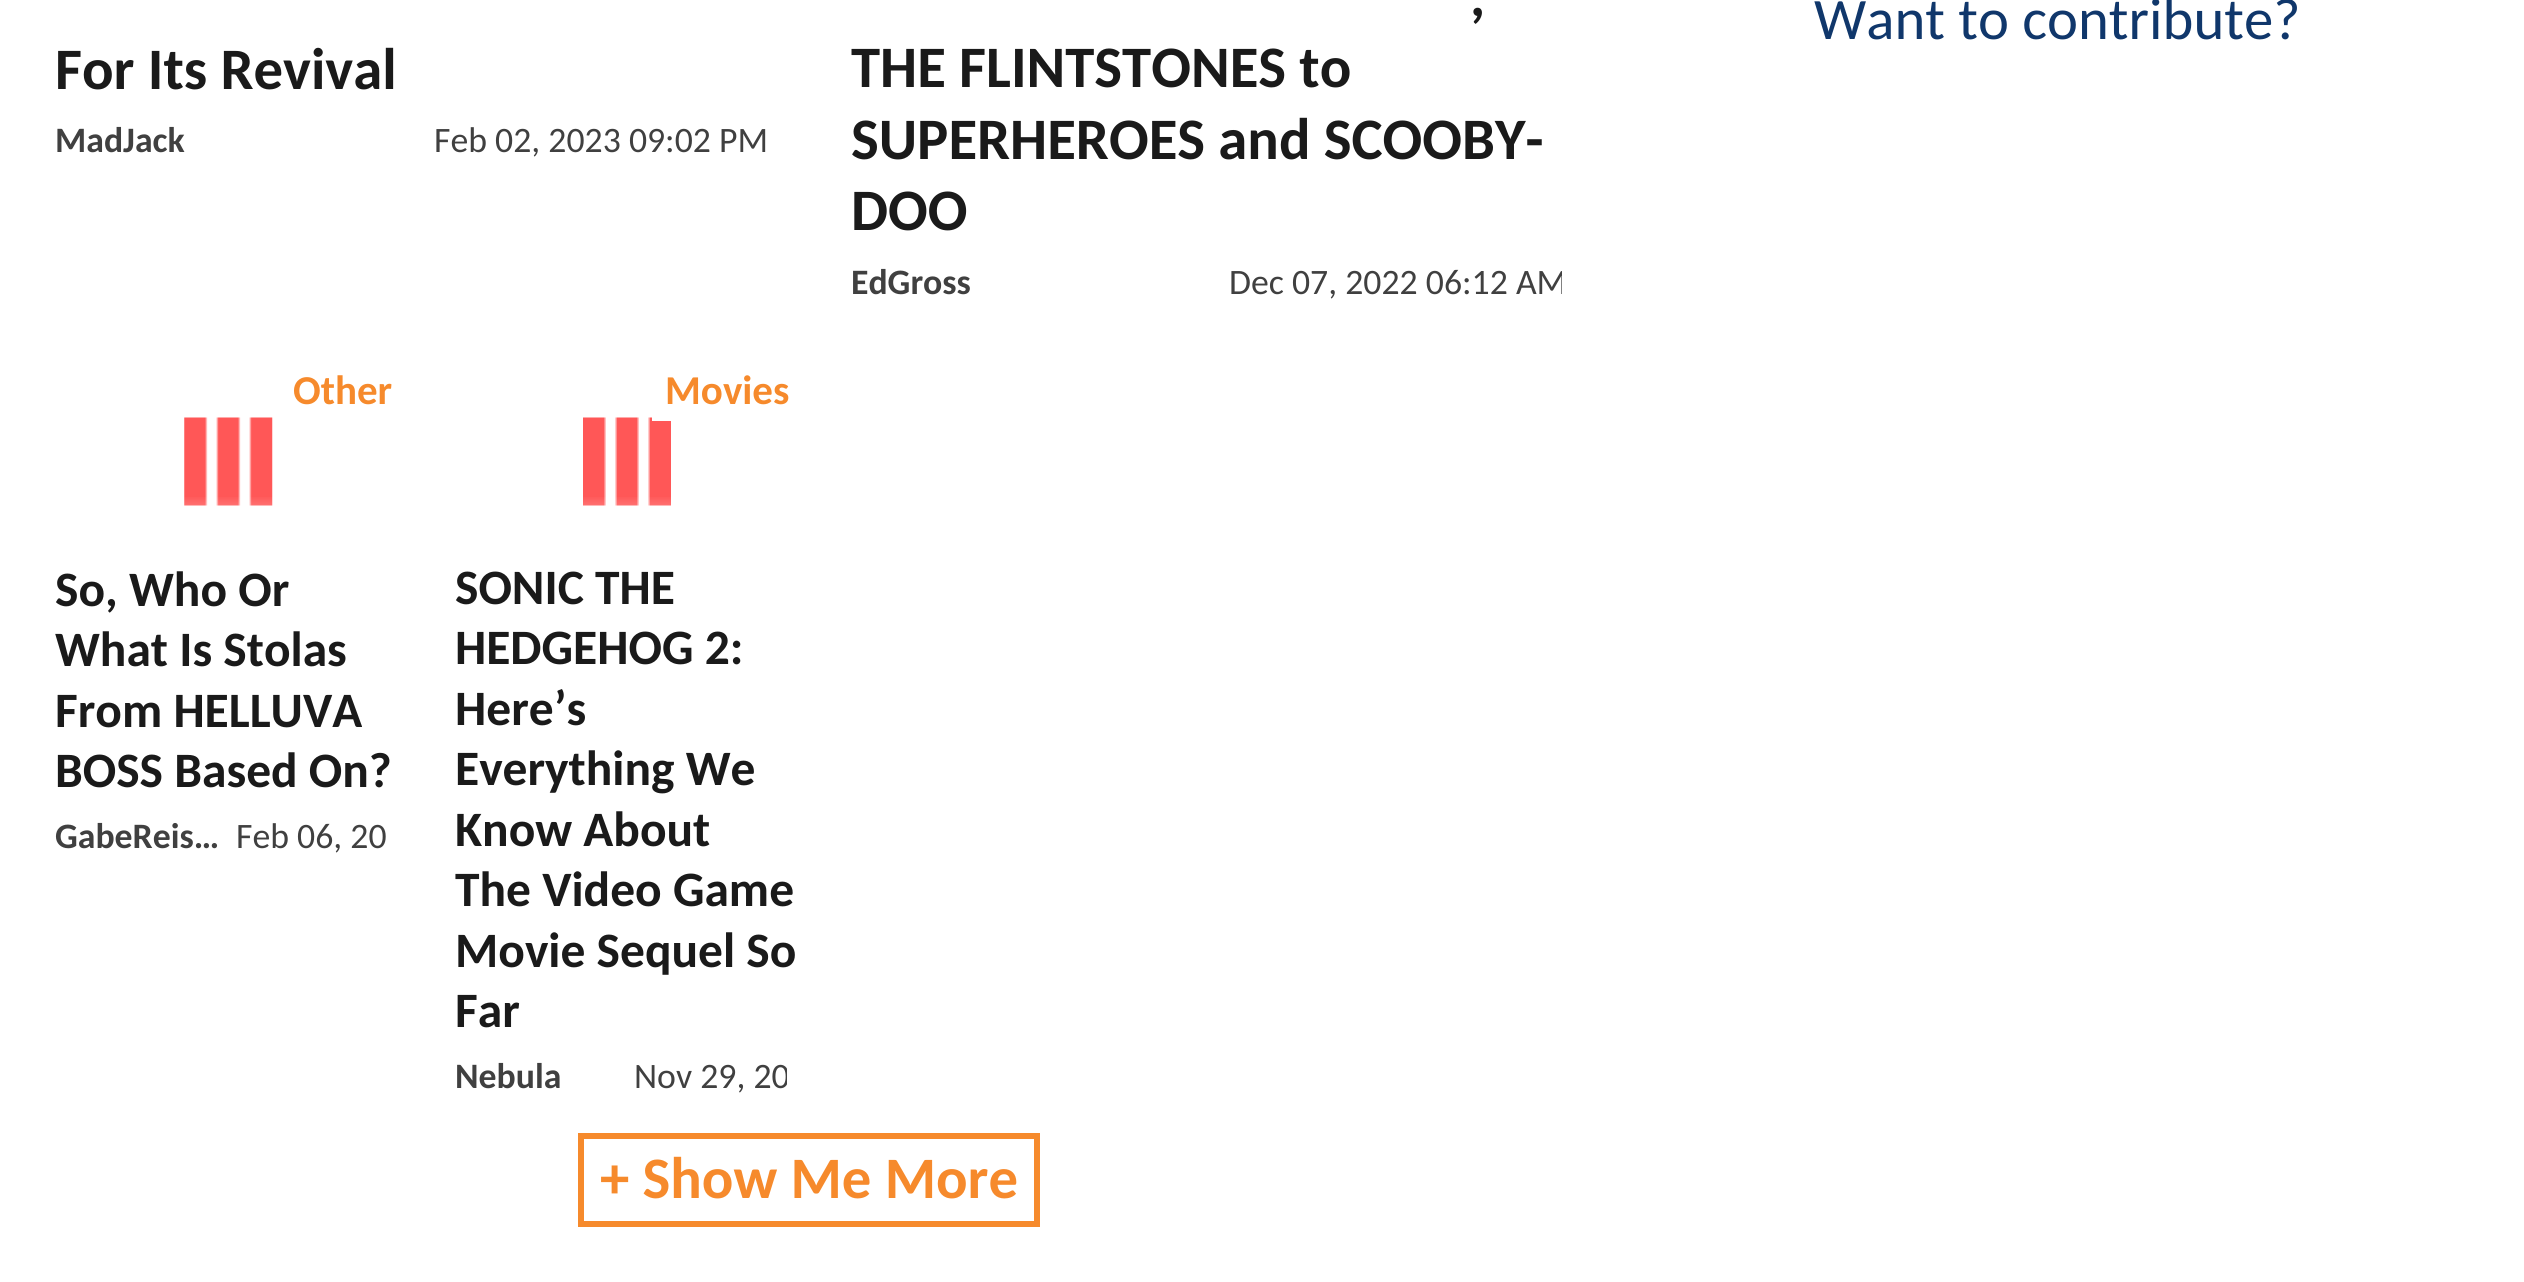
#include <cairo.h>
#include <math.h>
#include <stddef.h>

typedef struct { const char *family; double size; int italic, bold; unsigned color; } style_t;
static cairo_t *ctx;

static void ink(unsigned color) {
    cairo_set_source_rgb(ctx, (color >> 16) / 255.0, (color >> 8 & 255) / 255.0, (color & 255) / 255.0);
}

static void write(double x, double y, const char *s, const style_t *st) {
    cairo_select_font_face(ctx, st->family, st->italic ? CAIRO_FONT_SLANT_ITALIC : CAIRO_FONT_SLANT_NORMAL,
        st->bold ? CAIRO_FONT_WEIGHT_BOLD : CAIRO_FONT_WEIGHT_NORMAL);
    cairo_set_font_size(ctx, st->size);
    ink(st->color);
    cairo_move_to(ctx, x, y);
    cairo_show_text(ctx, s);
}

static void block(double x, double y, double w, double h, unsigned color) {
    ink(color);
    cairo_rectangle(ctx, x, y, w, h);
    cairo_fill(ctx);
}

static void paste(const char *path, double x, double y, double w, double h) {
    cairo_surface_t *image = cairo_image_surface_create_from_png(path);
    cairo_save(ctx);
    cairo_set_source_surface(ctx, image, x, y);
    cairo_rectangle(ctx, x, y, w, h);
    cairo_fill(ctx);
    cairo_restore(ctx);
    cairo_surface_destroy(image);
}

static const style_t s1 = {"Carlito", 58.75, 0, 1, 0x1a1a1a};
static const style_t s2 = {"Carlito", 35.75, 0, 1, 0x404040};
static const style_t s3 = {"Carlito", 35.75, 0, 0, 0x404040};
static const style_t s4 = {"Carlito", 41, 0, 1, 0xf68a2c};
static const style_t s5 = {"Carlito", 49.5, 0, 1, 0x1a1a1a};
static const style_t s6 = {"Carlito", 58.75, 0, 1, 0xf68a2c};
static const style_t s7 = {"Carlito", 58.75, 0, 0, 0x10376b};

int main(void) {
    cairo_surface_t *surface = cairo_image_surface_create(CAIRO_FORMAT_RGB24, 2524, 1282);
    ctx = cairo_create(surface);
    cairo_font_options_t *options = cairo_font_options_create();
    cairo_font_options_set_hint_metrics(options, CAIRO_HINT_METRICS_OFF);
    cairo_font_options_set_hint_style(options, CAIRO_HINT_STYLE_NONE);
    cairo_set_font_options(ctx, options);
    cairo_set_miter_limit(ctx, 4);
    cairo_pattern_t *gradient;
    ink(0xffffff);
    cairo_paint(ctx);
    write(55, 89, "For Its Revival", &s1);
    write(55, 152, "MadJack", &s2);
    write(434, 152, "Feb 02, 2023 09:02 PM", &s3);
    write(1470, 16, ",", &s1);
    write(851, 87, "THE FLINTSTONES to", &s1);
    write(851, 159, "SUPERHEROES and SCOOBY-", &s1);
    write(851, 230, "DOO", &s1);
    write(851, 294, "EdGross", &s2);
    cairo_save(ctx);
    cairo_rectangle(ctx, 1229, 261, 333, 42);
    cairo_clip(ctx);
    write(1229, 294, "Dec 07, 2022 06:12 AM", &s3);
    cairo_restore(ctx);
    write(293, 404, "Other", &s4);
    paste("pic1.png", 184, 417, 89, 89);
    gradient = cairo_pattern_create_linear(227, 561, 227, 363);
    cairo_pattern_add_color_stop_rgba(gradient, 0, 1, 1, 1, 1);
    cairo_pattern_add_color_stop_rgba(gradient, 0.33, 1, 1, 1, 0);
    cairo_set_source(ctx, gradient);
    cairo_pattern_destroy(gradient);
    cairo_rectangle(ctx, 184, 497, 89, 9);
    cairo_fill(ctx);
    write(55, 606, "So, Who Or", &s5);
    write(55, 666, "What Is Stolas", &s5);
    write(55, 727, "From HELLUVA", &s5);
    write(55, 787, "BOSS Based On?", &s5);
    write(55, 848, "GabeReis…", &s2);
    write(236, 848, "Feb 06, 20", &s3);
    paste("pic2.png", 583, 417, 88, 89);
    block(652, 417, 19, 4, 0xffffff);
    write(665, 404, "Movies", &s4);
    gradient = cairo_pattern_create_linear(626, 561, 626, 363);
    cairo_pattern_add_color_stop_rgba(gradient, 0, 1, 1, 1, 1);
    cairo_pattern_add_color_stop_rgba(gradient, 0.33, 1, 1, 1, 0);
    cairo_set_source(ctx, gradient);
    cairo_pattern_destroy(gradient);
    cairo_rectangle(ctx, 583, 497, 88, 9);
    cairo_fill(ctx);
    write(455, 604, "SONIC THE", &s5);
    write(455, 664, "HEDGEHOG 2:", &s5);
    write(455, 725, "Here’s", &s5);
    write(455, 785, "Everything We", &s5);
    write(455, 846, "Know About", &s5);
    write(455, 906, "The Video Game", &s5);
    write(455, 967, "Movie Sequel So", &s5);
    write(455, 1027, "Far", &s5);
    write(455, 1088, "Nebula", &s2);
    cairo_save(ctx);
    cairo_rectangle(ctx, 633, 1056, 154, 41);
    cairo_clip(ctx);
    write(634, 1088, "Nov 29, 20", &s3);
    cairo_restore(ctx);
    cairo_rectangle(ctx, 581, 1136, 456, 88);
    ink(0xf68a2c);
    cairo_set_line_width(ctx, 6);
    cairo_stroke(ctx);
    write(600, 1198, "+ Show Me More", &s6);
    write(1814, 39, "Want to contribute?", &s7);
    cairo_surface_write_to_png(surface, "screenshot.png");
    cairo_font_options_destroy(options);
    cairo_destroy(ctx);
    cairo_surface_destroy(surface);
    return 0;
}
